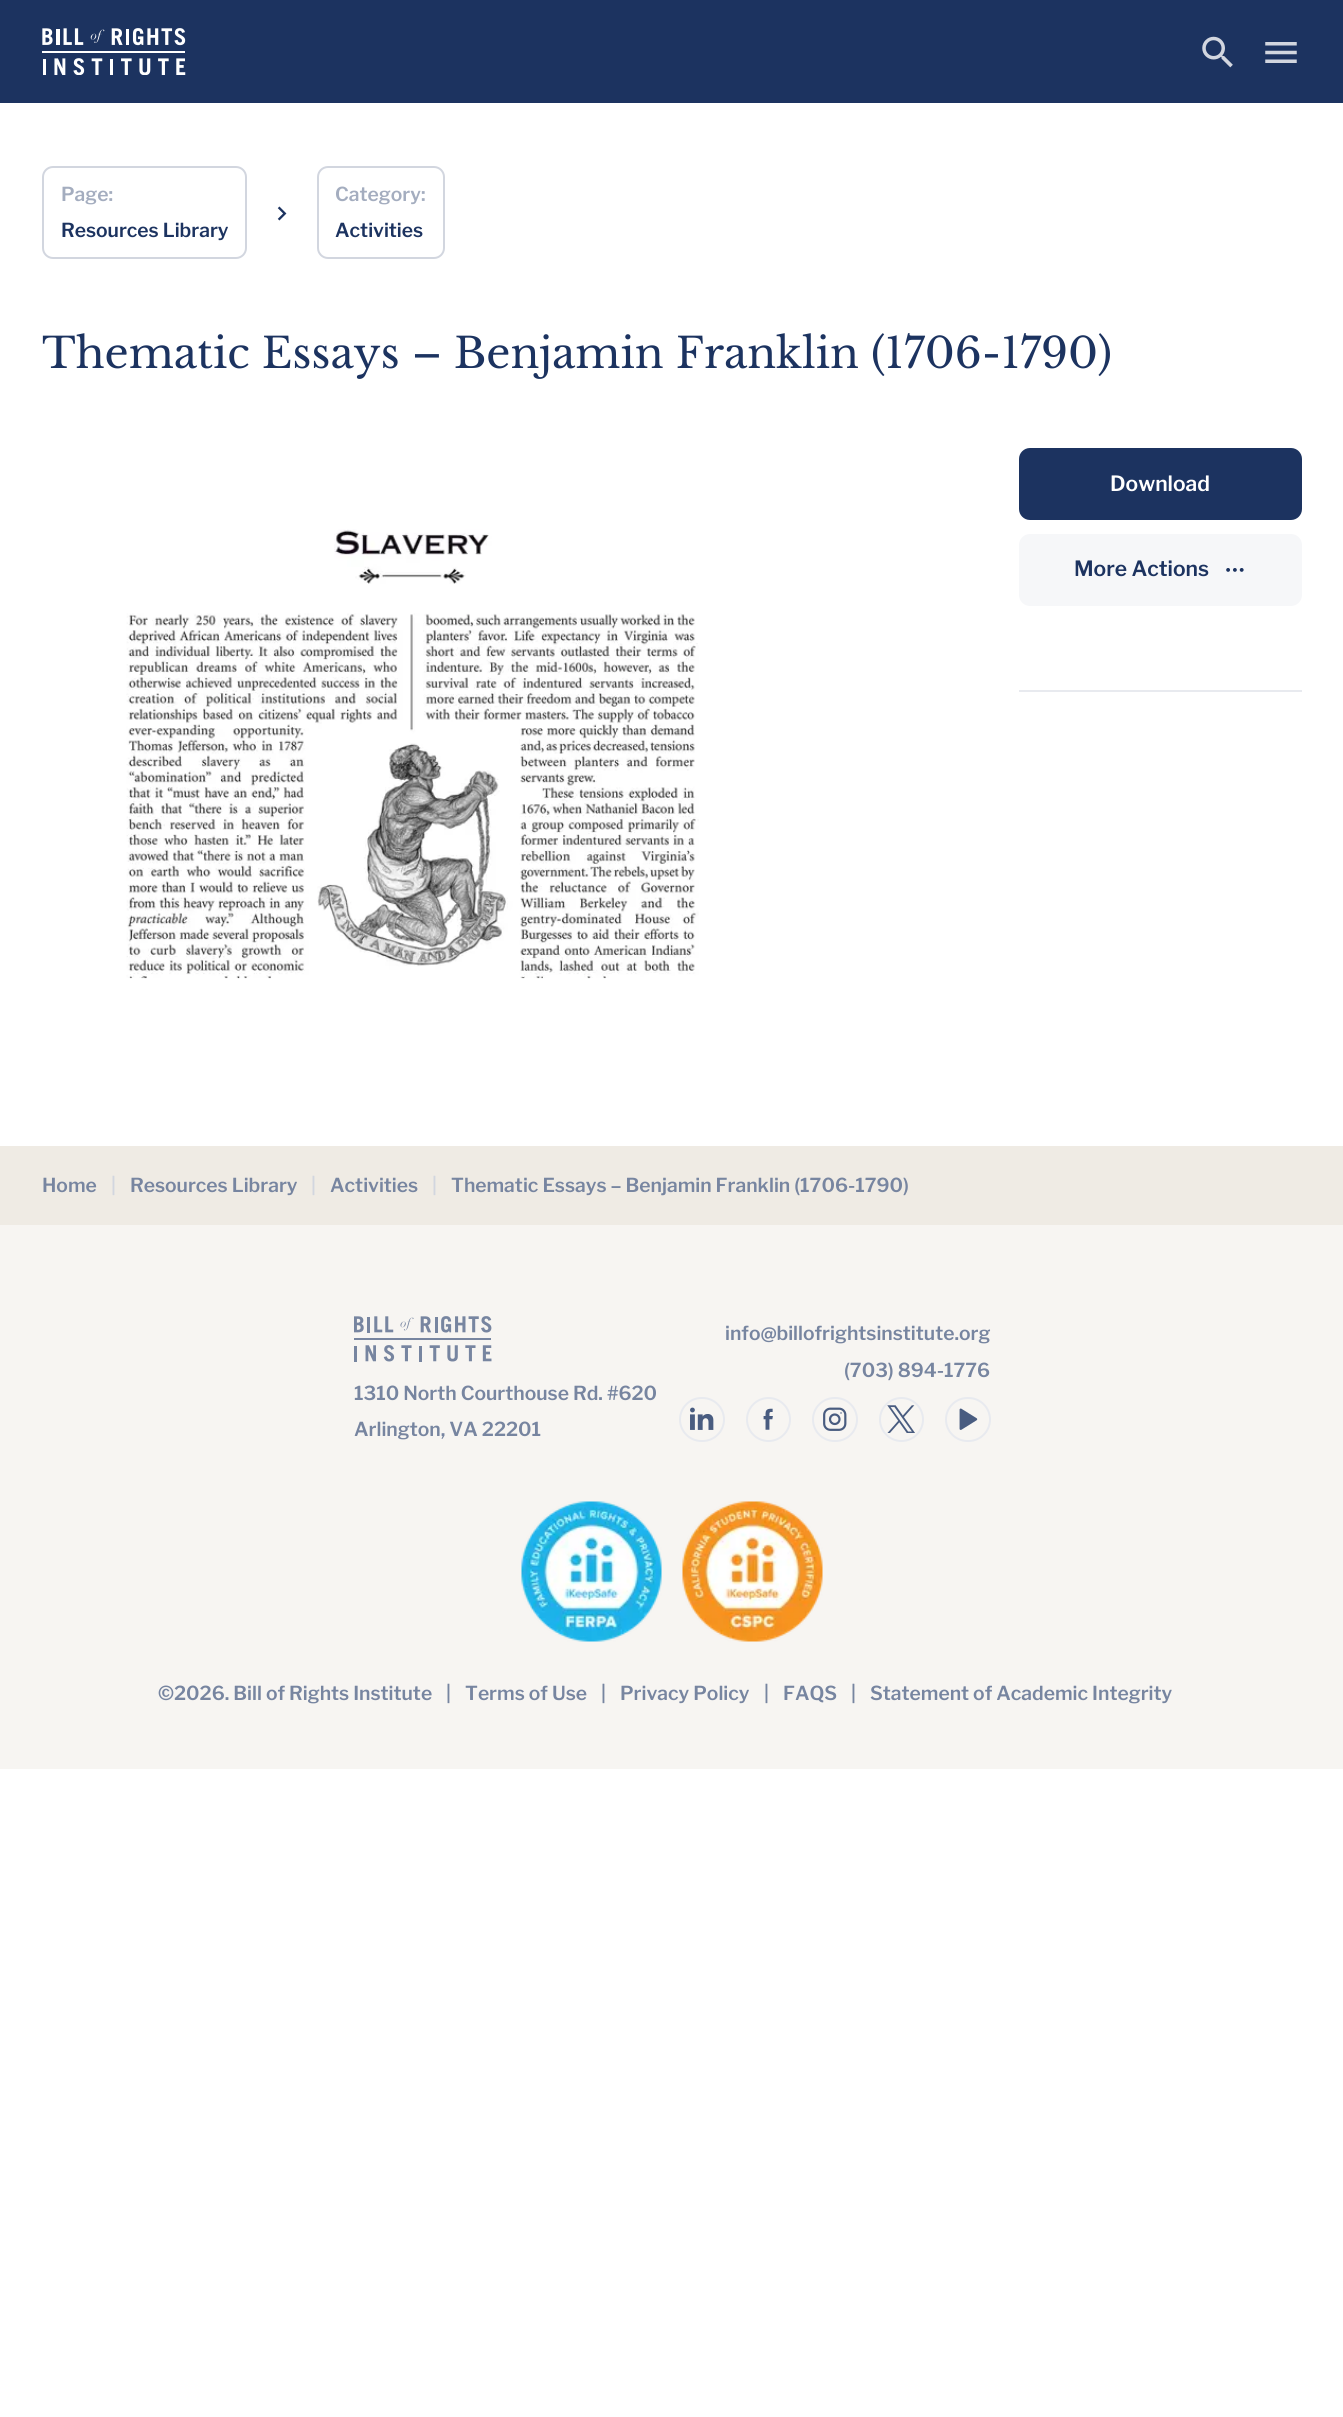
#include <cairo.h>
#include <math.h>
#include <stddef.h>

typedef struct { const char *family; double size; int italic, bold; unsigned color; } style_t;
static cairo_t *ctx;

static void ink(unsigned color) {
    cairo_set_source_rgb(ctx, (color >> 16) / 255.0, (color >> 8 & 255) / 255.0, (color & 255) / 255.0);
}

static void write(double x, double y, const char *s, const style_t *st) {
    cairo_select_font_face(ctx, st->family, st->italic ? CAIRO_FONT_SLANT_ITALIC : CAIRO_FONT_SLANT_NORMAL,
        st->bold ? CAIRO_FONT_WEIGHT_BOLD : CAIRO_FONT_WEIGHT_NORMAL);
    cairo_set_font_size(ctx, st->size);
    ink(st->color);
    cairo_move_to(ctx, x, y);
    cairo_show_text(ctx, s);
}

static void block(double x, double y, double w, double h, unsigned color) {
    ink(color);
    cairo_rectangle(ctx, x, y, w, h);
    cairo_fill(ctx);
}

static void round_path(double x, double y, double w, double h, double r) {
    cairo_new_sub_path(ctx);
    cairo_arc(ctx, x + w - r, y + h - r, r, 0, M_PI / 2);
    cairo_arc(ctx, x + r, y + h - r, r, M_PI / 2, M_PI);
    cairo_arc(ctx, x + r, y + r, r, M_PI, 1.5 * M_PI);
    cairo_arc(ctx, x + w - r, y + r, r, 1.5 * M_PI, 2 * M_PI);
    cairo_close_path(ctx);
}

static void paste(const char *path, double x, double y, double w, double h) {
    cairo_surface_t *image = cairo_image_surface_create_from_png(path);
    cairo_save(ctx);
    cairo_set_source_surface(ctx, image, x, y);
    cairo_rectangle(ctx, x, y, w, h);
    cairo_fill(ctx);
    cairo_restore(ctx);
    cairo_surface_destroy(image);
}

static const style_t s1 = {"Libre Franklin SemiBold", 19.25, 0, 0, 0xa4adbf};
static const style_t s2 = {"Libre Franklin SemiBold", 19.25, 0, 0, 0x1c3360};
static const style_t s3 = {"Libre Baskerville", 42, 0, 0, 0x1c3360};
static const style_t s4 = {"Libre Franklin SemiBold", 21, 0, 0, 0xffffff};
static const style_t s5 = {"Libre Franklin SemiBold", 21, 0, 0, 0x1c3360};
static const style_t s6 = {"Libre Franklin SemiBold", 19.25, 0, 0, 0x7785a0};
static const style_t s7 = {"Libre Franklin SemiBold", 19.25, 0, 0, 0xd2d6df};

int main(void) {
    cairo_surface_t *surface = cairo_image_surface_create(CAIRO_FORMAT_RGB24, 1343, 2417);
    ctx = cairo_create(surface);
    cairo_font_options_t *options = cairo_font_options_create();
    cairo_font_options_set_hint_metrics(options, CAIRO_HINT_METRICS_OFF);
    cairo_font_options_set_hint_style(options, CAIRO_HINT_STYLE_NONE);
    cairo_set_font_options(ctx, options);
    cairo_set_miter_limit(ctx, 4);
    ink(0xffffff);
    cairo_paint(ctx);
    block(0, 0, 1343, 103, 0x1c3360);
    paste("pic1.png", 42, 28, 144, 47);
    paste("pic2.png", 1202, 36, 31, 32);
    paste("pic3.png", 1265, 42, 32, 21);
    round_path(43, 167, 203, 91, 10);
    ink(0xd2d6df);
    cairo_stroke(ctx);
    write(61, 201, "Page:", &s1);
    write(61, 237, "Resources Library", &s2);
    paste("pic4.png", 277, 206, 10, 15);
    round_path(318, 167, 126, 91, 10);
    ink(0xd2d6df);
    cairo_stroke(ctx);
    write(335, 201, "Category:", &s1);
    write(335, 237, "Activities", &s2);
    write(42, 368, "Thematic Essays – Benjamin Franklin (1706-1790)", &s3);
    paste("pic5.png", 126, 529, 573, 450);
    round_path(1019, 448, 283, 72, 11);
    cairo_fill(ctx);
    write(1110, 491, "Download", &s4);
    ink(0xf6f7f9);
    round_path(1019, 534, 283, 72, 11);
    cairo_fill(ctx);
    write(1074, 576, "More Actions", &s5);
    paste("pic6.png", 1226, 568, 18, 4);
    block(1019, 690, 283, 2, 0xe8eaef);
    block(0, 1146, 1343, 79, 0xefebe4);
    write(42, 1192, "Home", &s6);
    write(111, 1192, "|", &s7);
    write(130, 1192, "Resources Library", &s6);
    write(311, 1192, "|", &s7);
    write(330, 1192, "Activities", &s6);
    write(432, 1192, "|", &s7);
    write(451, 1192, "Thematic Essays – Benjamin Franklin (1706-1790)", &s6);
    block(0, 1225, 1343, 544, 0xf7f5f2);
    write(725, 1340, "info@billofrightsinstitute.org", &s6);
    write(844, 1377, "(703) 894-1776", &s6);
    round_path(680, 1398, 44, 43, 21.5);
    ink(0xe8eaef);
    cairo_stroke(ctx);
    paste("pic7.png", 690, 1407, 24, 23);
    cairo_arc(ctx, 768.5, 1419.5, 21.5, 0, 2 * M_PI);
    cairo_stroke(ctx);
    paste("pic8.png", 763, 1408, 10, 22);
    round_path(813, 1398, 44, 43, 21.5);
    cairo_stroke(ctx);
    paste("pic9.png", 823, 1407, 24, 24);
    cairo_arc(ctx, 901.5, 1419.5, 21.5, 0, 2 * M_PI);
    cairo_stroke(ctx);
    paste("pic10.png", 887, 1405, 28, 28);
    round_path(946, 1398, 44, 43, 21.5);
    cairo_stroke(ctx);
    paste("pic11.png", 959, 1408, 19, 22);
    paste("pic12.png", 354, 1316, 138, 46);
    write(354, 1400, "1310 North Courthouse Rd. #620", &s6);
    write(354, 1436, "Arlington, VA 22201", &s6);
    paste("pic13.png", 521, 1501, 141, 141);
    paste("pic14.png", 682, 1501, 141, 141);
    write(158, 1700, "©2026. Bill of Rights Institute", &s6);
    write(446, 1700, "|", &s6);
    write(465, 1700, "Terms of Use", &s6);
    write(601, 1700, "|", &s6);
    write(620, 1700, "Privacy Policy", &s6);
    write(764, 1700, "|", &s6);
    write(783, 1700, "FAQS", &s6);
    write(851, 1700, "|", &s6);
    write(870, 1700, "Statement of Academic Integrity", &s6);
    cairo_surface_write_to_png(surface, "screenshot.png");
    cairo_font_options_destroy(options);
    cairo_destroy(ctx);
    cairo_surface_destroy(surface);
    return 0;
}
